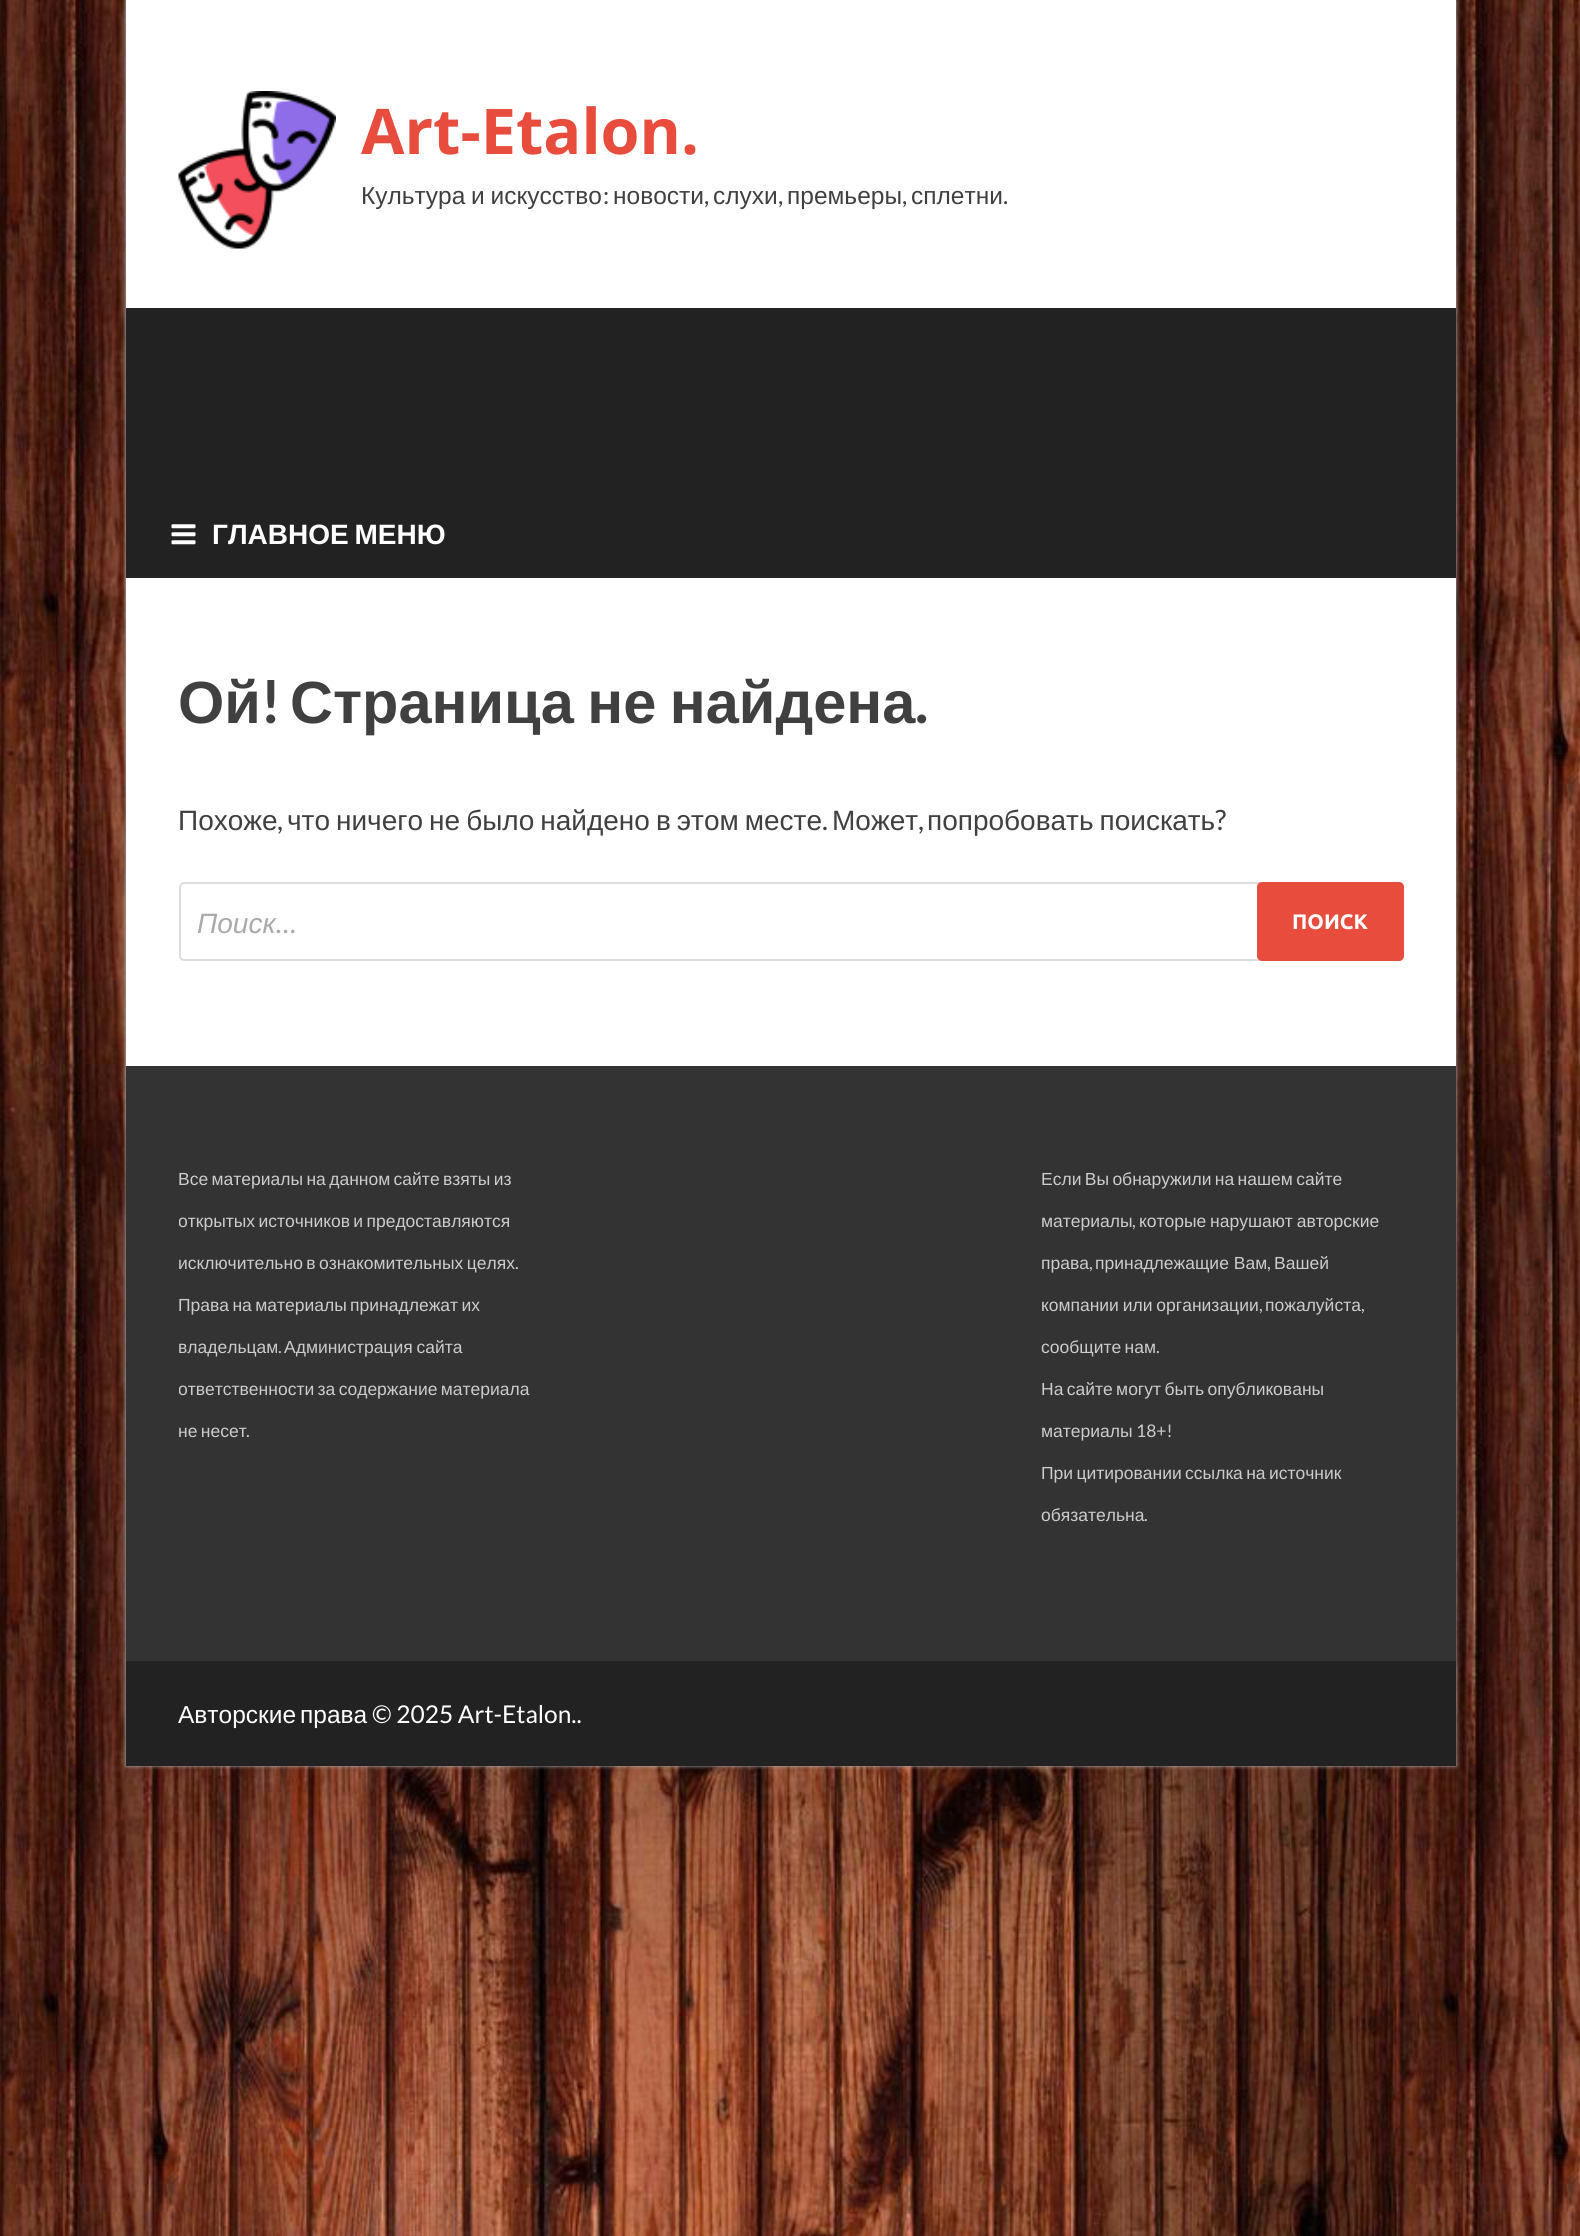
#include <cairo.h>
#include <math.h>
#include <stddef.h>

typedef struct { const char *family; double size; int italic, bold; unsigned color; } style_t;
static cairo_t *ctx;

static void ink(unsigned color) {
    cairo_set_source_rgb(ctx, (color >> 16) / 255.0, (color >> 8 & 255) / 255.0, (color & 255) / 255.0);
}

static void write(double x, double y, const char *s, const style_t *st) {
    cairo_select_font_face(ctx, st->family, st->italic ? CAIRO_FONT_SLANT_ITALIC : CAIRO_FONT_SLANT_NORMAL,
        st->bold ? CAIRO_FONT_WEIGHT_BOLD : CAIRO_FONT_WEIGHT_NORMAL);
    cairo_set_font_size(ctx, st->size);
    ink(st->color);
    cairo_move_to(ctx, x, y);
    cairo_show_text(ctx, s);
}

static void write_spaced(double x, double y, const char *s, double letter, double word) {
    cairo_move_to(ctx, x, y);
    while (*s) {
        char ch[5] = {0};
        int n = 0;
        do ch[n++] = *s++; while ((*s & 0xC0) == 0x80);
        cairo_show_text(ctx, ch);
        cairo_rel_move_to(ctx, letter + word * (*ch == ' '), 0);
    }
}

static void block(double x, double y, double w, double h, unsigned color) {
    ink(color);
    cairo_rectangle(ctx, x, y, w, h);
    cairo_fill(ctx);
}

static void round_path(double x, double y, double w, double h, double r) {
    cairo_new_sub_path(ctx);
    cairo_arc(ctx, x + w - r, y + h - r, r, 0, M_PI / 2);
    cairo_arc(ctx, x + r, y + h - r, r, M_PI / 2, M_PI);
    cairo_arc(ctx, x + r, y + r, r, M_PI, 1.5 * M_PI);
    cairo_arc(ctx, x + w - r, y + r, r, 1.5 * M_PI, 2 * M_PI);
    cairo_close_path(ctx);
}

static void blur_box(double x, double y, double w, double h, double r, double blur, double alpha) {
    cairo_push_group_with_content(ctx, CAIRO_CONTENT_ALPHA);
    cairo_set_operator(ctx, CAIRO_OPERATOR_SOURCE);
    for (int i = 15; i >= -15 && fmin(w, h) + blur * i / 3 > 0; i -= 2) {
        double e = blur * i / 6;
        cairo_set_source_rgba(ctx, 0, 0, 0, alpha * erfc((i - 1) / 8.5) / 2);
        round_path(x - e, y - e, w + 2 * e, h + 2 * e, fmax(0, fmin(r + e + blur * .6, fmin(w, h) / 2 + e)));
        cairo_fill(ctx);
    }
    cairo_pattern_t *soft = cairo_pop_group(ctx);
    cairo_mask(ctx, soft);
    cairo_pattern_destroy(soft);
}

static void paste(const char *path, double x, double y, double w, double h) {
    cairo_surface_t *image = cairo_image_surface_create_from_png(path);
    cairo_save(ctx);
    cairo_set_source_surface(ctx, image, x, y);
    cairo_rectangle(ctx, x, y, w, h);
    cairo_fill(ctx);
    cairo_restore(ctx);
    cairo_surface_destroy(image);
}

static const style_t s1 = {"Open Sans", 63, 0, 1, 0xe74c3c};
static const style_t s2 = {"Lato", 24.5, 0, 0, 0x404040};
static const style_t s3 = {"Liberation Sans", 24.5, 0, 0, 0x404040};
static const style_t s4 = {"Liberation Sans", 59.5, 0, 1, 0x404040};
static const style_t s5 = {"Lato", 59.5, 0, 1, 0x404040};
static const style_t s6 = {"Liberation Sans", 28, 0, 0, 0x404040};
static const style_t s7 = {"Lato", 28, 0, 0, 0x404040};
static const style_t s8 = {"Liberation Sans", 28, 1, 0, 0xaaaaaa};
static const style_t s9 = {"Lato", 28, 1, 0, 0xaaaaaa};
static const style_t s10 = {"Ubuntu", 21, 0, 1, 0xffffff};
static const style_t s11 = {"Lato", 17.5, 0, 0, 0xcccccc};
static const style_t s12 = {"Liberation Sans", 17.5, 0, 0, 0xcccccc};
static const style_t s13 = {"Liberation Sans", 24.5, 0, 0, 0xffffff};
static const style_t s14 = {"Lato", 24.5, 0, 0, 0xffffff};

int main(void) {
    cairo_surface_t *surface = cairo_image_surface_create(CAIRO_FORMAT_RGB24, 1580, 2236);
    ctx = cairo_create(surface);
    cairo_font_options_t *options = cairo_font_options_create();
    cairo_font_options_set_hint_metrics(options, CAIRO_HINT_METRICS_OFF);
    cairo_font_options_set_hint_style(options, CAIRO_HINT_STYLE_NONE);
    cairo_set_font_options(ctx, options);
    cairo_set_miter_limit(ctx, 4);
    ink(0xffffff);
    cairo_paint(ctx);
    paste("pic1.png", 0, 0, 1580, 2236);
    ink(0xbbbbbb);
    blur_box(126, 0, 1330, 1766, 0, 2, 1);
    block(126, 0, 1330, 1066, 0xffffff);
    paste("pic2.png", 178, 91, 158, 158);
    write(361, 154, "Art-Etalon.", &s1);
    cairo_select_font_face(ctx, "Liberation Sans", CAIRO_FONT_SLANT_NORMAL, CAIRO_FONT_WEIGHT_NORMAL);
    cairo_set_font_size(ctx, 24.5);
    ink(0x404040);
    write_spaced(361, 204, "Культура и искусство", 0, -1);
    write(603, 204, ":", &s2);
    write(613, 204, "новости", &s3);
    write(704, 204, ",", &s2);
    write(713, 204, "слухи", &s3);
    write(778, 204, ",", &s2);
    write(787, 204, "премьеры", &s3);
    write(902, 204, ",", &s2);
    write(911, 204, "сплетни", &s3);
    write(1003, 204, ".", &s2);
    block(126, 308, 1330, 270, 0x222222);
    paste("pic3.png", 171, 524, 25, 21);
    cairo_select_font_face(ctx, "Liberation Sans", CAIRO_FONT_SLANT_NORMAL, CAIRO_FONT_WEIGHT_BOLD);
    cairo_set_font_size(ctx, 28);
    ink(0xffffff);
    write_spaced(212, 544, "ГЛАВНОЕ МЕНЮ", 0, -2);
    write(178, 723, "Ой", &s4);
    write(260, 723, "!", &s5);
    cairo_select_font_face(ctx, "Liberation Sans", CAIRO_FONT_SLANT_NORMAL, CAIRO_FONT_WEIGHT_BOLD);
    write_spaced(290, 723, "Страница не найдена", 0, -3);
    write(915, 723, ".", &s5);
    write(178, 830, "Похоже", &s6);
    write(277, 830, ",", &s7);
    cairo_select_font_face(ctx, "Liberation Sans", CAIRO_FONT_SLANT_NORMAL, CAIRO_FONT_WEIGHT_NORMAL);
    write_spaced(287, 830, "что ничего не было найдено в этом месте", 0, -1.75);
    write(822, 830, ".", &s7);
    write(832, 830, "Может", &s6);
    write(918, 830, ",", &s7);
    cairo_select_font_face(ctx, "Liberation Sans", CAIRO_FONT_SLANT_NORMAL, CAIRO_FONT_WEIGHT_NORMAL);
    write_spaced(927, 830, "попробовать поискать", 0, -1.75);
    write(1215, 830, "?", &s7);
    round_path(180, 883, 1223, 77, 4);
    ink(0xdddddd);
    cairo_stroke(ctx);
    write(197, 933, "Поиск", &s8);
    write(276, 933, "…", &s9);
    ink(0xe74c3c);
    round_path(1257, 882, 147, 79, 5);
    cairo_fill(ctx);
    write(1292, 929, "ПОИСК", &s10);
    block(126, 1066, 1330, 595, 0x333333);
    cairo_select_font_face(ctx, "Liberation Sans", CAIRO_FONT_SLANT_NORMAL, CAIRO_FONT_WEIGHT_NORMAL);
    cairo_set_font_size(ctx, 17.5);
    ink(0xcccccc);
    write_spaced(178, 1185, "Все материалы на данном сайте взяты из", 0, -1.5);
    cairo_save(ctx);
    cairo_rectangle(ctx, 179, 1153, 360, 336);
    cairo_clip(ctx);
    write_spaced(178, 1227, "открытых источников и предоставляются", 0, -1.5);
    write_spaced(178, 1269, "исключительно в ознакомительных целях", 0, -1.5);
    cairo_restore(ctx);
    write(515, 1269, ".", &s11);
    cairo_select_font_face(ctx, "Liberation Sans", CAIRO_FONT_SLANT_NORMAL, CAIRO_FONT_WEIGHT_NORMAL);
    write_spaced(178, 1311, "Права на материалы принадлежат их", 0, -1.5);
    cairo_save(ctx);
    cairo_rectangle(ctx, 179, 1153, 360, 336);
    cairo_clip(ctx);
    write(178, 1353, "владельцам", &s12);
    cairo_restore(ctx);
    write(278, 1353, ".", &s11);
    cairo_select_font_face(ctx, "Liberation Sans", CAIRO_FONT_SLANT_NORMAL, CAIRO_FONT_WEIGHT_NORMAL);
    write_spaced(284, 1353, "Администрация сайта", 0, -1);
    cairo_save(ctx);
    cairo_rectangle(ctx, 179, 1153, 360, 336);
    cairo_clip(ctx);
    write_spaced(178, 1395, "ответственности за содержание материала", 0, -1.5);
    write_spaced(178, 1437, "не несет", 0, -1.5);
    cairo_restore(ctx);
    write(246, 1437, ".", &s11);
    cairo_select_font_face(ctx, "Liberation Sans", CAIRO_FONT_SLANT_NORMAL, CAIRO_FONT_WEIGHT_NORMAL);
    write_spaced(1041, 1185, "Если Вы обнаружили на нашем сайте", 0, -1.5);
    write(1041, 1227, "материалы", &s12);
    write(1132, 1227, ",", &s11);
    cairo_select_font_face(ctx, "Liberation Sans", CAIRO_FONT_SLANT_NORMAL, CAIRO_FONT_WEIGHT_NORMAL);
    write_spaced(1139, 1227, "которые нарушают авторские", 0, -1);
    write(1041, 1269, "права", &s12);
    write(1089, 1269, ",", &s11);
    write(1095, 1269, "принадлежащие Вам", &s12);
    write(1267, 1269, ",", &s11);
    write(1274, 1269, "Вашей", &s12);
    write_spaced(1041, 1311, "компании или организации", 0, -1);
    write(1259, 1311, ",", &s11);
    write(1265, 1311, "пожалуйста", &s12);
    write(1361, 1311, ",", &s11);
    cairo_select_font_face(ctx, "Liberation Sans", CAIRO_FONT_SLANT_NORMAL, CAIRO_FONT_WEIGHT_NORMAL);
    write_spaced(1041, 1353, "сообщите нам", 0, -1.5);
    write(1156, 1353, ".", &s11);
    cairo_select_font_face(ctx, "Liberation Sans", CAIRO_FONT_SLANT_NORMAL, CAIRO_FONT_WEIGHT_NORMAL);
    write_spaced(1041, 1395, "На сайте могут быть опубликованы", 0, -1.5);
    write(1041, 1437, "материалы", &s12);
    write(1136, 1437, "18+!", &s11);
    cairo_select_font_face(ctx, "Liberation Sans", CAIRO_FONT_SLANT_NORMAL, CAIRO_FONT_WEIGHT_NORMAL);
    write_spaced(1041, 1479, "При цитировании ссылка на источник", 0, -1.5);
    write(1041, 1521, "обязательна", &s12);
    write(1144, 1521, ".", &s11);
    block(126, 1661, 1330, 105, 0x222222);
    write(178, 1723, "Авторские", &s13);
    write(300, 1723, "права", &s13);
    write(372, 1723, "© 2025 Art-Etalon..", &s14);
    cairo_surface_write_to_png(surface, "screenshot.png");
    cairo_font_options_destroy(options);
    cairo_destroy(ctx);
    cairo_surface_destroy(surface);
    return 0;
}
